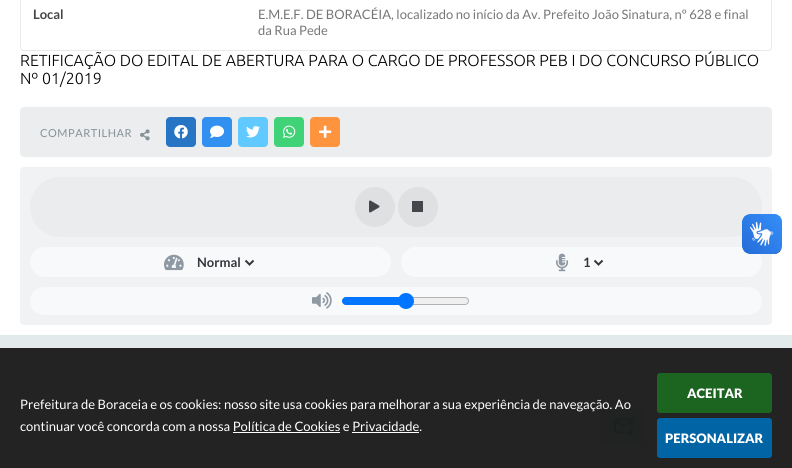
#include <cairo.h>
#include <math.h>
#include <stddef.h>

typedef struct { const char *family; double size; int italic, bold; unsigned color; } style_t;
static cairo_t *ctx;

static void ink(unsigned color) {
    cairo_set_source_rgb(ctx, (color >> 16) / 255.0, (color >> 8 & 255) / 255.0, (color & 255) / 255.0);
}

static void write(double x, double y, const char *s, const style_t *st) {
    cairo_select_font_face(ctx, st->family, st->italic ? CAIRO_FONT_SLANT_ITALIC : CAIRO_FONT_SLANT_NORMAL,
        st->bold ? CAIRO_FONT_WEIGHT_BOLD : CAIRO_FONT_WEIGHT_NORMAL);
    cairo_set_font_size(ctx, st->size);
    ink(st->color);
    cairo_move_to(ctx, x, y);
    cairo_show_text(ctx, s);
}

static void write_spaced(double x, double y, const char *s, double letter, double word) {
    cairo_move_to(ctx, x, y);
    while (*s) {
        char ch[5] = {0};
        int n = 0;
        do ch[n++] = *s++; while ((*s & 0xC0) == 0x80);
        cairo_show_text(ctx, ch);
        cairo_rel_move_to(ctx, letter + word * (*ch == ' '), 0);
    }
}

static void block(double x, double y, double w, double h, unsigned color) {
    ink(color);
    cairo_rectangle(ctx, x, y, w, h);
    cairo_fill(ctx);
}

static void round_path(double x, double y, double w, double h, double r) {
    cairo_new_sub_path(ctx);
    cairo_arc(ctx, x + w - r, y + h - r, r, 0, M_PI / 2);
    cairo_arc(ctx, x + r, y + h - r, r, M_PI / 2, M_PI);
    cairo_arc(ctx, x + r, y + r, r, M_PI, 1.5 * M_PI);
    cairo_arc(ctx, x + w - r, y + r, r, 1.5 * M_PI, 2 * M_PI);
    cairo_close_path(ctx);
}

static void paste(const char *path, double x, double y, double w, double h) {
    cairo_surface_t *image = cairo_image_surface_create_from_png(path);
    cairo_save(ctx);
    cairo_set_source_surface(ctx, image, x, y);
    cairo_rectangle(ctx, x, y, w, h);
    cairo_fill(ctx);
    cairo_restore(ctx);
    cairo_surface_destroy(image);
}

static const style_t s1 = {"Lato", 13, 0, 1, 0x454545};
static const style_t s2 = {"Lato", 13, 0, 0, 0x777777};
static const style_t s3 = {"Ubuntu Light", 16, 0, 0, 0x000000};
static const style_t s4 = {"Lato", 13, 0, 1, 0x35353b};
static const style_t s5 = {"Lato", 13, 0, 0, 0xffffff};
static const style_t s6 = {"Lato Black", 13, 0, 0, 0xffffff};

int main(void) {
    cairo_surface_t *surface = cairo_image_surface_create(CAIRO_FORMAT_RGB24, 792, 468);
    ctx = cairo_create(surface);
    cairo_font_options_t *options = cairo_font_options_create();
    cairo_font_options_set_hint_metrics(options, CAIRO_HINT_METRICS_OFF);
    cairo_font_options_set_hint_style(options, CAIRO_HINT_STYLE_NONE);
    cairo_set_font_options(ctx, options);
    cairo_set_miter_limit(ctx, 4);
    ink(0xffffff);
    cairo_paint(ctx);
    round_path(20.5, -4.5, 751, 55, 3.5);
    ink(0xe7e9eb);
    cairo_set_line_width(ctx, 1);
    cairo_stroke(ctx);
    write(33, 19, "Local", &s1);
    write(258, 19, "E.M.E.F. DE BORACÉIA, localizado no início da Av. Prefeito João Sinatura, nº 628 e final", &s2);
    write(258, 35, "da Rua Pede", &s2);
    write(20, 66, "RETIFICAÇÃO DO EDITAL DE ABERTURA PARA O CARGO DE PROFESSOR PEB I DO CONCURSO PÚBLICO", &s3);
    write(20, 84, "Nº 01/2019", &s3);
    ink(0xebedee);
    round_path(20, 107, 752, 50, 4);
    cairo_fill(ctx);
    cairo_select_font_face(ctx, "Lato", CAIRO_FONT_SLANT_NORMAL, CAIRO_FONT_WEIGHT_NORMAL);
    cairo_set_font_size(ctx, 11);
    ink(0x869198);
    write_spaced(40, 137, "COMPARTILHAR", 0.5, 0);
    paste("pic1.png", 140, 129, 10, 12);
    ink(0x2675c5);
    round_path(166, 117, 30, 30, 4);
    cairo_fill(ctx);
    paste("pic2.png", 174, 125, 14, 14);
    ink(0x3290f0);
    round_path(202, 117, 30, 30, 4);
    cairo_fill(ctx);
    paste("pic3.png", 210, 125, 14, 13);
    ink(0x60c9ff);
    round_path(238, 117, 30, 30, 4);
    cairo_fill(ctx);
    paste("pic4.png", 246, 126, 14, 12);
    ink(0x40d277);
    round_path(274, 117, 30, 30, 4);
    cairo_fill(ctx);
    paste("pic5.png", 283, 125, 13, 13);
    ink(0xff943e);
    round_path(310, 117, 30, 30, 4);
    cairo_fill(ctx);
    paste("pic6.png", 319, 125, 13, 13);
    ink(0xf0f2f4);
    round_path(20, 167, 752, 158, 4);
    cairo_fill(ctx);
    ink(0xeaecee);
    round_path(30, 177, 732, 60, 30);
    cairo_fill(ctx);
    ink(0xdee0e2);
    cairo_arc(ctx, 375, 207, 20, 0, 2 * M_PI);
    cairo_fill(ctx);
    paste("pic7.png", 369, 200, 11, 13);
    cairo_arc(ctx, 418, 207, 20, 0, 2 * M_PI);
    cairo_fill(ctx);
    block(412, 201, 11, 11, 0x45454b);
    ink(0xf8f9fa);
    round_path(30, 247, 361, 30, 15);
    cairo_fill(ctx);
    paste("pic8.png", 164, 254, 20, 17);
    cairo_new_path(ctx);
    cairo_move_to(ctx, 245.5, 260.5);
    cairo_line_to(ctx, 249.5, 264.5);
    cairo_line_to(ctx, 253.5, 260.5);
    ink(0x35353b);
    cairo_set_line_width(ctx, 2);
    cairo_stroke(ctx);
    write(197, 267, "Normal", &s4);
    ink(0xf8f9fa);
    round_path(401, 247, 361, 30, 15);
    cairo_fill(ctx);
    paste("pic9.png", 556, 253, 13, 19);
    cairo_new_path(ctx);
    cairo_move_to(ctx, 594.5, 260.5);
    cairo_line_to(ctx, 598.5, 264.5);
    cairo_line_to(ctx, 602.5, 260.5);
    ink(0x35353b);
    cairo_stroke(ctx);
    write(583, 267, "1", &s4);
    ink(0xf8f9fa);
    round_path(30, 287, 732, 28, 14);
    cairo_fill(ctx);
    paste("pic10.png", 312, 292, 20, 17);
    ink(0xefefef);
    round_path(342.5, 297.5, 126, 7, 3.5);
    cairo_fill_preserve(ctx);
    ink(0xb2b2b2);
    cairo_set_line_width(ctx, 1);
    cairo_stroke(ctx);
    ink(0x0075ff);
    cairo_new_path(ctx);
    cairo_move_to(ctx, 346, 297);
    cairo_line_to(ctx, 406, 297);
    cairo_line_to(ctx, 406, 305);
    cairo_line_to(ctx, 346, 305);
    cairo_curve_to(ctx, 344, 305, 342, 303, 342, 301);
    cairo_curve_to(ctx, 342, 299, 344, 297, 346, 297);
    cairo_close_path(ctx);
    cairo_fill(ctx);
    cairo_arc(ctx, 406, 301, 8, 0, 2 * M_PI);
    cairo_fill(ctx);
    block(0, 335, 792, 13, 0xe3eaec);
    block(0, 348, 792, 120, 0x232324);
    ink(0x202322);
    cairo_new_path(ctx);
    cairo_move_to(ctx, 601, 409);
    cairo_line_to(ctx, 641, 409);
    cairo_curve_to(ctx, 644, 409, 646, 411, 646, 414);
    cairo_line_to(ctx, 646, 439);
    cairo_curve_to(ctx, 646, 442, 644, 444, 641, 444);
    cairo_line_to(ctx, 601, 444);
    cairo_close_path(ctx);
    cairo_fill(ctx);
    paste("pic11.png", 614, 418, 20, 18);
    paste("pic12.png", 742, 214, 40, 40);
    paste("pic13.png", 742, 214, 40, 40);
    write(20, 409, "Prefeitura de Boraceia e os cookies: nosso site usa cookies para melhorar a sua experiência de navegação. Ao", &s5);
    write(20, 431, "continuar você concorda com a nossa Política de Cookies e Privacidade.", &s5);
    block(233, 432, 107, 1, 0xffffff);
    block(352, 432, 67, 1, 0xffffff);
    ink(0x1b6520);
    round_path(657, 373, 115, 40, 3);
    cairo_fill(ctx);
    write(687, 398, "ACEITAR", &s6);
    ink(0x0164a4);
    round_path(657, 418, 115, 40, 3);
    cairo_fill(ctx);
    write(665, 443, "PERSONALIZAR", &s6);
    cairo_surface_write_to_png(surface, "screenshot.png");
    cairo_font_options_destroy(options);
    cairo_destroy(ctx);
    cairo_surface_destroy(surface);
    return 0;
}
